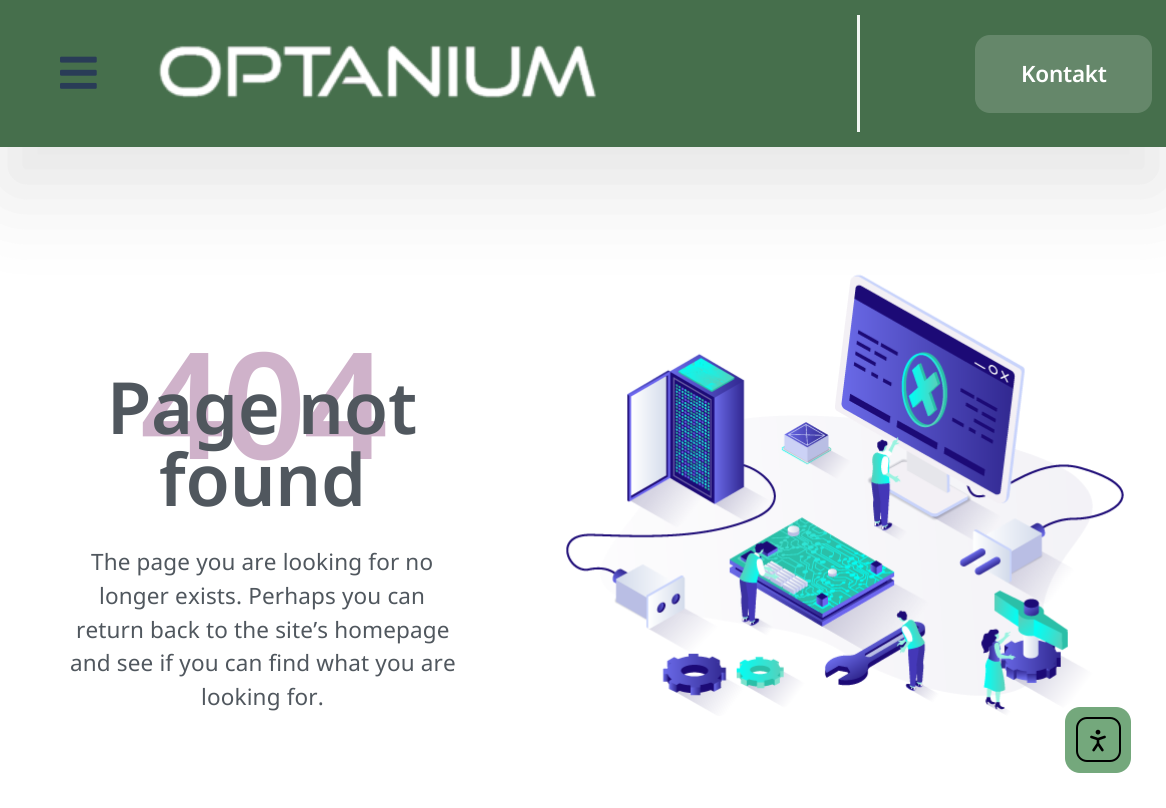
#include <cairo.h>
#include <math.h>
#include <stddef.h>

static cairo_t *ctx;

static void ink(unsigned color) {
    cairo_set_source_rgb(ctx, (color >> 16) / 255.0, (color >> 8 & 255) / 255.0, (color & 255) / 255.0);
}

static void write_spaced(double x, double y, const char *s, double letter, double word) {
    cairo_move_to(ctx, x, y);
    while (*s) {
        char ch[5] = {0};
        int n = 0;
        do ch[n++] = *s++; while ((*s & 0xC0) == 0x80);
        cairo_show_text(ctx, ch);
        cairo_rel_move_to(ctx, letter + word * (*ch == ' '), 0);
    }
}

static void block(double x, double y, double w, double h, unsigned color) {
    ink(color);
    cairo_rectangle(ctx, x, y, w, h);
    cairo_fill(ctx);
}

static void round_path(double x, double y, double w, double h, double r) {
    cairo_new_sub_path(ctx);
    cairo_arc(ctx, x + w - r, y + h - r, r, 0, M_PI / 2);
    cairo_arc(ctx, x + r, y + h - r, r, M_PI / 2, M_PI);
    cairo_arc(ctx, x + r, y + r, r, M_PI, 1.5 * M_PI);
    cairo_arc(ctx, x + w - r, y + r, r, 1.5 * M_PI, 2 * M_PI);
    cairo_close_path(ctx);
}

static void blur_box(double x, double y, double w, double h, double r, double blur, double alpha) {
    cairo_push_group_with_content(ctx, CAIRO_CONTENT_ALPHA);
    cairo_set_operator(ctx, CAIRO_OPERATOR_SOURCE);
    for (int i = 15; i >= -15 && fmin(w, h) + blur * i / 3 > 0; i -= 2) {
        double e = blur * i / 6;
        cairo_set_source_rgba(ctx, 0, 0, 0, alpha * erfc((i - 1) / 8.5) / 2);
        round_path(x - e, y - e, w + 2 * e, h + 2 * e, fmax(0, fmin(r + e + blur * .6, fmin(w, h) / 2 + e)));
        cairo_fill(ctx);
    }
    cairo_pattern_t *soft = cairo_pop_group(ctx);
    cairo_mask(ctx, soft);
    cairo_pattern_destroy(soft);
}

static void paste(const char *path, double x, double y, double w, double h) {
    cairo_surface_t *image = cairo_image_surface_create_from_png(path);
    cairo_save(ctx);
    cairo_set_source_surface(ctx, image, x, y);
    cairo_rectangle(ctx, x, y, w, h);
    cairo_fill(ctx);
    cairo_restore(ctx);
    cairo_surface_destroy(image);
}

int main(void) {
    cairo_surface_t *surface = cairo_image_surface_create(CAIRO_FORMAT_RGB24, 1166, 808);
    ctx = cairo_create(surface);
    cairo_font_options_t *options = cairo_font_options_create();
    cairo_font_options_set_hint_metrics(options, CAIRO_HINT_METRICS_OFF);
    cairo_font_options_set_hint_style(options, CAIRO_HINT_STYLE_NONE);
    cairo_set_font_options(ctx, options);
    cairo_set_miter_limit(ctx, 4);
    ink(0xffffff);
    cairo_paint(ctx);
    paste("pic3.png", 566, 274, 558, 442);
    ink(0x000000);
    blur_box(0, 45, 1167, 147, 0, 45, 0.1);
    block(0, 0, 1166, 147, 0x466f4c);
    paste("pic1.png", 60, 56, 37, 33);
    block(857, 15, 3, 117, 0xf1f6f2);
    paste("pic2.png", 158, 44, 439, 54);
    ink(0x65876a);
    round_path(975, 35, 177, 78, 15);
    cairo_fill(ctx);
    cairo_select_font_face(ctx, "Noto Sans SemiBold", CAIRO_FONT_SLANT_NORMAL, CAIRO_FONT_WEIGHT_NORMAL);
    cairo_set_font_size(ctx, 22.5);
    ink(0xffffff);
    write_spaced(1021, 82, "Kontakt", -0.25, 0);
    cairo_set_font_size(ctx, 148);
    ink(0xcfb2ca);
    write_spaced(140, 459, "404", -3, 0);
    cairo_set_font_size(ctx, 72);
    ink(0x50575e);
    write_spaced(107, 434, "Page not", -0.25, 0);
    write_spaced(159, 506, "found", -0.25, 0);
    cairo_select_font_face(ctx, "Noto Sans", CAIRO_FONT_SLANT_NORMAL, CAIRO_FONT_WEIGHT_NORMAL);
    cairo_set_font_size(ctx, 22.5);
    write_spaced(91, 570, "The page you are looking for no", 0.15, 0);
    write_spaced(99, 604, "longer exists. Perhaps you can", 0.15, 0);
    write_spaced(76, 638, "return back to the site’s homepage", 0.15, 0);
    write_spaced(70, 671, "and see if you can find what you are", 0.15, 0);
    write_spaced(201, 705, "looking for.", 0.15, 0);
    ink(0x74a87c);
    round_path(1065, 707, 66, 66, 15);
    cairo_fill(ctx);
    round_path(1077, 718, 43, 43, 10);
    ink(0x000000);
    cairo_stroke(ctx);
    paste("pic4.png", 1090, 729, 16, 23);
    cairo_surface_write_to_png(surface, "screenshot.png");
    cairo_font_options_destroy(options);
    cairo_destroy(ctx);
    cairo_surface_destroy(surface);
    return 0;
}
